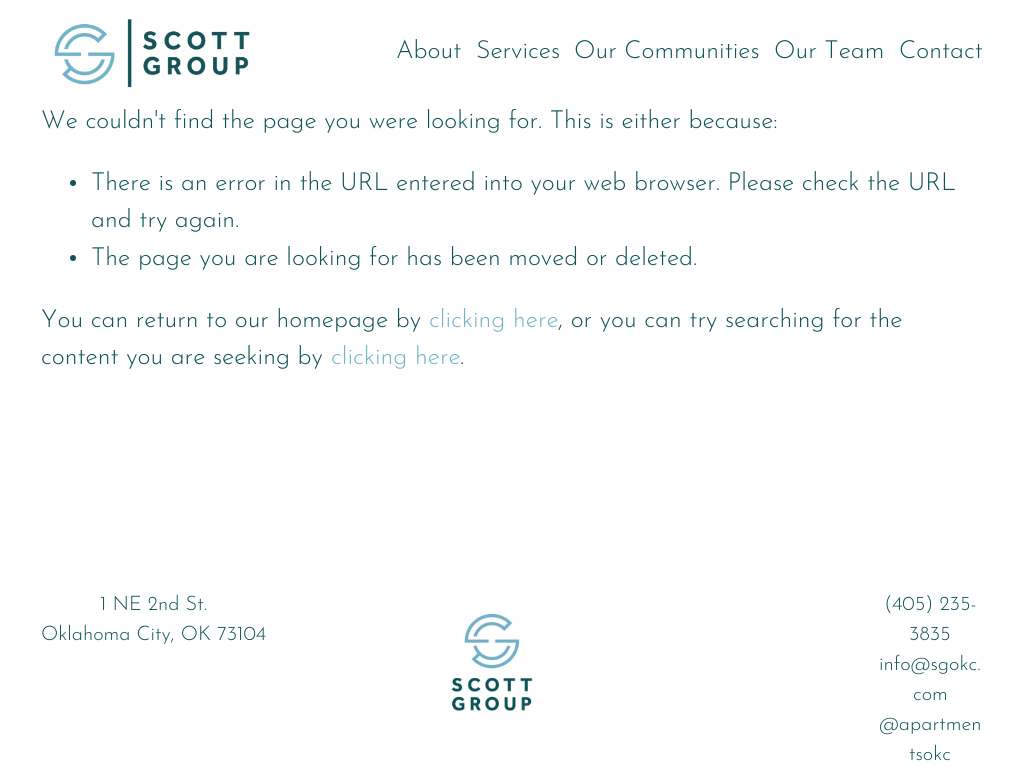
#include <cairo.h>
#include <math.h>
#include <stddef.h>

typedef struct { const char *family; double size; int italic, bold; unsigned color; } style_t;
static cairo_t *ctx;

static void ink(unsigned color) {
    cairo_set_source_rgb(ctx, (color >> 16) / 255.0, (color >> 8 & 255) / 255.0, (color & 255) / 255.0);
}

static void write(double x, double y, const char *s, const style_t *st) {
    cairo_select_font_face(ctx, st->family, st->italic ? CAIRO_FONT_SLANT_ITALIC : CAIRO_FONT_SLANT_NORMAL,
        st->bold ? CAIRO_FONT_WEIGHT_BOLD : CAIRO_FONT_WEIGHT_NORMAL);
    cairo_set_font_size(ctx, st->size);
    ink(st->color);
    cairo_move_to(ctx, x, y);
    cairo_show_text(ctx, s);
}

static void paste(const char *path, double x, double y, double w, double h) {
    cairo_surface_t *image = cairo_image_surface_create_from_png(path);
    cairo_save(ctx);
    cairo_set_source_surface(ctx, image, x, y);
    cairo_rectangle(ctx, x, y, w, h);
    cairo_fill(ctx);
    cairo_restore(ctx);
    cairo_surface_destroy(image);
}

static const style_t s1 = {"Josefin Sans Light", 24.9, 0, 0, 0x0e5358};
static const style_t s2 = {"Josefin Sans Light", 24.9, 0, 0, 0x72b3c9};
static const style_t s3 = {"Josefin Sans Light", 20, 0, 0, 0x0e5358};

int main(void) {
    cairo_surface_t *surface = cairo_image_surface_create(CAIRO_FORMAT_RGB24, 1023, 780);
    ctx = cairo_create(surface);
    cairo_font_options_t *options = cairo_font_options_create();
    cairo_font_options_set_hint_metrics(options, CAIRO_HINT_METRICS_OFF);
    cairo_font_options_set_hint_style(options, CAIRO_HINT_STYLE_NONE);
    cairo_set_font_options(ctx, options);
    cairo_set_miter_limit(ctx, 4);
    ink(0xffffff);
    cairo_paint(ctx);
    paste("pic1.png", 54, 19, 196, 69);
    write(396, 58, "About", &s1);
    write(476, 58, "Services", &s1);
    write(574, 58, "Our Communities", &s1);
    write(774, 58, "Our Team", &s1);
    write(899, 58, "Contact", &s1);
    write(41, 128, "We couldn't find the page you were looking for. This is either because:", &s1);
    cairo_new_path(ctx);
    cairo_arc(ctx, 73, 183, 3, 0, 2 * M_PI);
    cairo_fill(ctx);
    write(91, 190, "There is an error in the URL entered into your web browser. Please check the URL", &s1);
    write(91, 227, "and try again.", &s1);
    cairo_new_path(ctx);
    cairo_arc(ctx, 73, 258, 3, 0, 2 * M_PI);
    cairo_fill(ctx);
    write(91, 265, "The page you are looking for has been moved or deleted.", &s1);
    write(41, 327, "You can return to our homepage by", &s1);
    write(429, 327, "clicking here", &s2);
    write(558, 327, ", or you can try searching for the", &s1);
    write(41, 364, "content you are seeking by", &s1);
    write(331, 364, "clicking here", &s2);
    write(460, 364, ".", &s1);
    write(100, 610, "1 NE 2nd St.", &s3);
    write(41, 640, "Oklahoma City, OK 73104", &s3);
    paste("pic2.png", 451, 613, 82, 99);
    write(884, 610, "(405) 235-", &s3);
    write(909, 640, "3835", &s3);
    write(879, 670, "info@sgokc.", &s3);
    write(913, 700, "com", &s3);
    write(879, 730, "@apartmen", &s3);
    write(909, 760, "tsokc", &s3);
    cairo_surface_write_to_png(surface, "screenshot.png");
    cairo_font_options_destroy(options);
    cairo_destroy(ctx);
    cairo_surface_destroy(surface);
    return 0;
}
